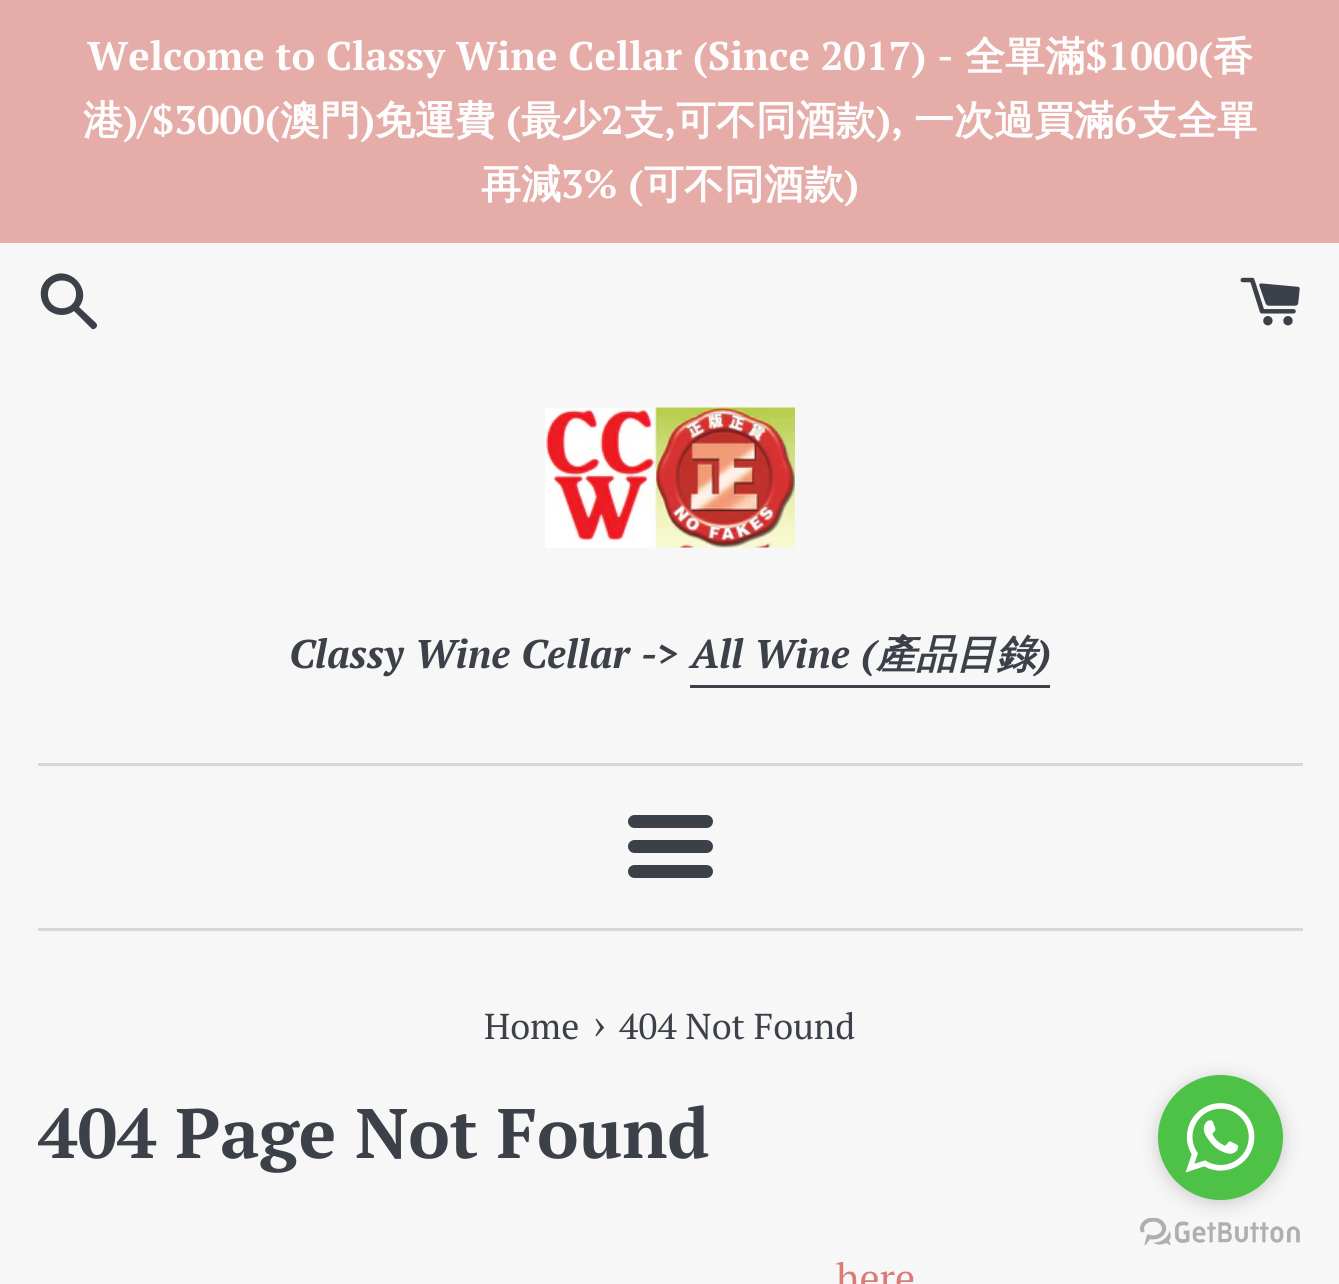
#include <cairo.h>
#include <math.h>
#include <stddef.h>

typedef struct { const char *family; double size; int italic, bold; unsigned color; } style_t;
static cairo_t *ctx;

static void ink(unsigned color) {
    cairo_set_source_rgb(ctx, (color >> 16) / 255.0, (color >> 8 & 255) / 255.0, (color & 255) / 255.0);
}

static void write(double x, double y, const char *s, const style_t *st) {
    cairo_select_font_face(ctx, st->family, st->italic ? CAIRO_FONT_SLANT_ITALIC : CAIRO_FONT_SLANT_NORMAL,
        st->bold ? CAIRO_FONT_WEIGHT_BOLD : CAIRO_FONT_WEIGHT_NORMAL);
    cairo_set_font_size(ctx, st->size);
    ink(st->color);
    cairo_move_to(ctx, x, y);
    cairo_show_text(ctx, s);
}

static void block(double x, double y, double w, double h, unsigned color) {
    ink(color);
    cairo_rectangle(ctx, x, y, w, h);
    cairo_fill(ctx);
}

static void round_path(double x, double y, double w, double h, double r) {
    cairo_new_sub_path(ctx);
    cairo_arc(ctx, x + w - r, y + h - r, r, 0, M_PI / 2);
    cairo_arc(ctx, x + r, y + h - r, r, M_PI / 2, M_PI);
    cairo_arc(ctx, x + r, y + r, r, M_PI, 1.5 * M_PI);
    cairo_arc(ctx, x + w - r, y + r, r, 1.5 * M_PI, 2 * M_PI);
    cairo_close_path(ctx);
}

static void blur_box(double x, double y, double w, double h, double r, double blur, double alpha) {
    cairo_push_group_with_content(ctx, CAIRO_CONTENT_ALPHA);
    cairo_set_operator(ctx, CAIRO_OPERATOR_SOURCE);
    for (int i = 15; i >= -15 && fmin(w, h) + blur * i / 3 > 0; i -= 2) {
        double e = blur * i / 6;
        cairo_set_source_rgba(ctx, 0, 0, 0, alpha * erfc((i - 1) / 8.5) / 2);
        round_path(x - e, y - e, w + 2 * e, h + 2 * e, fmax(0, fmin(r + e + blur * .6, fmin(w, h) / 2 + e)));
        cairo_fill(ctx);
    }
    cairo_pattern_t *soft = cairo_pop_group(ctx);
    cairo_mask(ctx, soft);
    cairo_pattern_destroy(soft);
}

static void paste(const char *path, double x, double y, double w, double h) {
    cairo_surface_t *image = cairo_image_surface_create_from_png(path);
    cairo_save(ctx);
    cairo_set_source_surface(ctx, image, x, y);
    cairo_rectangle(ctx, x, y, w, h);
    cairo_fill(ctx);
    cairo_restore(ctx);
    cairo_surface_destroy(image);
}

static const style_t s1 = {"PT Serif", 40, 0, 1, 0xfdfdfd};
static const style_t s2 = {"WenQuanYi Zen Hei", 40, 0, 1, 0xfdfdfd};
static const style_t s3 = {"PT Serif", 40, 1, 1, 0x3c4049};
static const style_t s4 = {"WenQuanYi Zen Hei", 40, 1, 1, 0x3c4049};
static const style_t s5 = {"PT Serif", 36, 0, 0, 0x3c4049};
static const style_t s6 = {"PT Serif", 44, 0, 0, 0x3c4049};
static const style_t s7 = {"PT Serif", 70, 0, 1, 0x3c4049};
static const style_t s8 = {"PT Serif", 40, 0, 0, 0xd97c76};

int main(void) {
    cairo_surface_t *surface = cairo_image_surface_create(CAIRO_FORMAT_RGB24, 1339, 1284);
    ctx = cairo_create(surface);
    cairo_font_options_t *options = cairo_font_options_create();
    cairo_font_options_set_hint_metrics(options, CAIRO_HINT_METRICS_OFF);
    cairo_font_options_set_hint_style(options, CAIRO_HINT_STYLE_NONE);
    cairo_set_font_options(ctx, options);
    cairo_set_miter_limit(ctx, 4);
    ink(0xf7f7f7);
    cairo_paint(ctx);
    block(0, 0, 1339, 243, 0xe5aca8);
    write(87, 70, "Welcome to Classy Wine Cellar (Since 2017) -", &s1);
    write(965, 70, "全單滿", &s2);
    write(1085, 70, "$1000(", &s1);
    write(1213, 70, "香", &s2);
    write(83, 134, "港", &s2);
    write(123, 134, ")/$3000(", &s1);
    write(280, 134, "澳門", &s2);
    write(360, 134, ")", &s1);
    write(375, 134, "免運費", &s2);
    write(506, 134, "(", &s1);
    write(521, 134, "最少", &s2);
    write(601, 134, "2", &s1);
    write(624, 134, "支 可不同酒款", &s2);
    write(876, 134, "),", &s1);
    write(914, 134, "一次過買滿", &s2);
    write(1114, 134, "6", &s1);
    write(1137, 134, "支全單", &s2);
    write(664, 134, ",", &s1);
    write(481, 198, "再減", &s2);
    write(561, 198, "3% (", &s1);
    write(644, 198, "可不同酒款", &s2);
    write(844, 198, ")", &s1);
    ink(0x3c4049);
    cairo_new_path(ctx);
    cairo_move_to(ctx, 96, 323);
    cairo_line_to(ctx, 79, 307);
    cairo_curve_to(ctx, 93, 289, 69, 264, 50, 277);
    cairo_curve_to(ctx, 45, 280, 42, 285, 41, 290);
    cairo_curve_to(ctx, 40, 297, 42, 304, 47, 309);
    cairo_curve_to(ctx, 54, 316, 66, 317, 74, 311);
    cairo_line_to(ctx, 92, 329);
    cairo_curve_to(ctx, 95, 330, 99, 326, 96, 323);
    cairo_close_path(ctx);
    cairo_move_to(ctx, 48, 294);
    cairo_curve_to(ctx, 48, 276, 76, 276, 76, 294);
    cairo_curve_to(ctx, 76, 313, 48, 313, 48, 294);
    cairo_close_path(ctx);
    cairo_fill(ctx);
    paste("pic1.png", 1240, 277, 60, 49);
    paste("pic2.png", 545, 407, 250, 141);
    write(289, 668, "Classy Wine Cellar -> All Wine (", &s3);
    write(876, 668, "產品目錄", &s4);
    write(1036, 668, ")", &s3);
    block(690, 685, 360, 3, 0x3c4049);
    block(38, 763, 1265, 3, 0xd7d8d2);
    ink(0x3c4049);
    round_path(628, 815, 85, 13, 6.5);
    cairo_fill(ctx);
    round_path(628, 840, 85, 13, 6.5);
    cairo_fill(ctx);
    round_path(628, 865, 85, 13, 6.5);
    cairo_fill(ctx);
    block(38, 928, 1265, 3, 0xd7d8d2);
    write(484, 1039, "Home", &s5);
    write(593, 1039, "›", &s6);
    write(619, 1039, "404 Not Found", &s5);
    write(38, 1158, "404 Page Not Found", &s7);
    write(836, 1292, "here", &s8);
    paste("pic4.png", 1140, 1218, 160, 27);
    ink(0x888888);
    blur_box(1158, 1078, 125, 125, 62.5, 9, 0.4);
    ink(0x4dc247);
    cairo_arc(ctx, 1220.5, 1137.5, 62.5, 0, 2 * M_PI);
    cairo_fill(ctx);
    paste("pic3.png", 1185, 1103, 70, 70);
    cairo_surface_write_to_png(surface, "screenshot.png");
    cairo_font_options_destroy(options);
    cairo_destroy(ctx);
    cairo_surface_destroy(surface);
    return 0;
}
